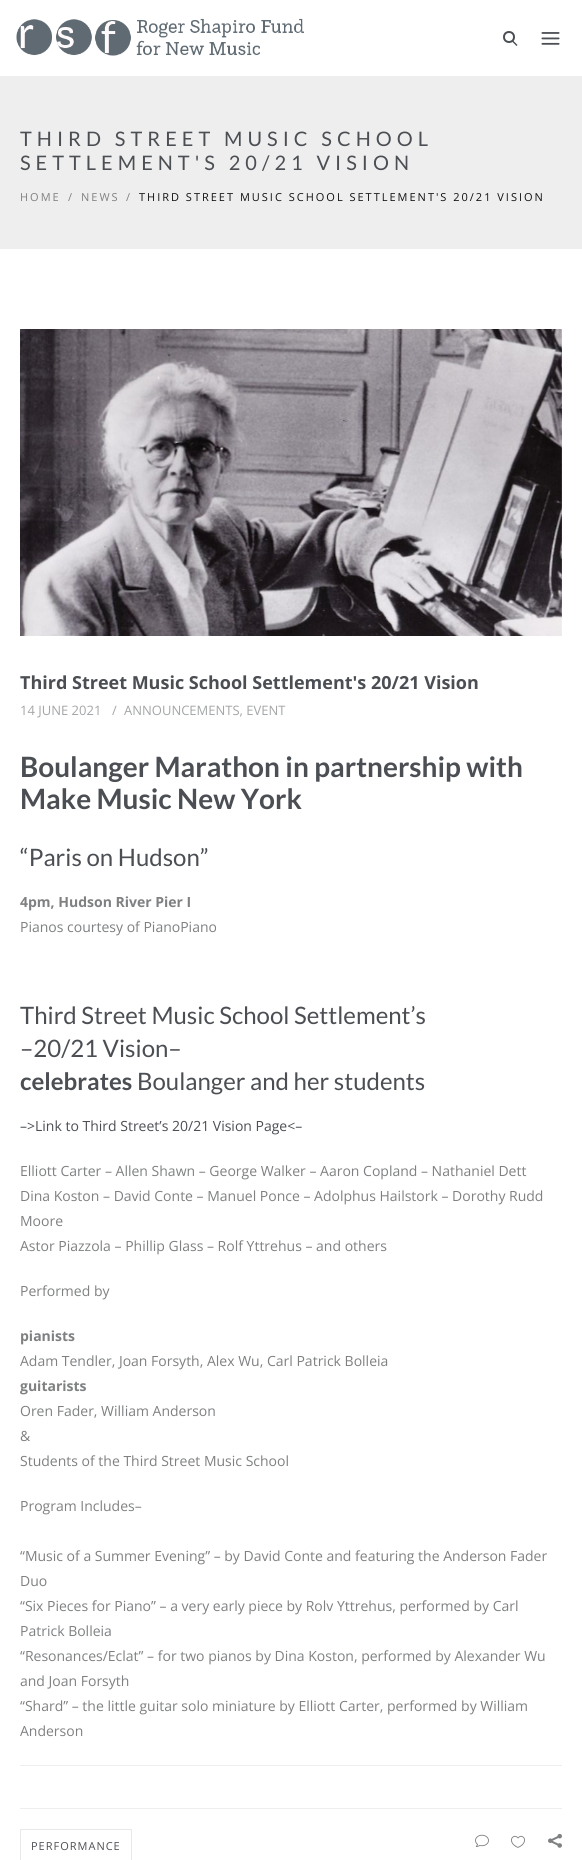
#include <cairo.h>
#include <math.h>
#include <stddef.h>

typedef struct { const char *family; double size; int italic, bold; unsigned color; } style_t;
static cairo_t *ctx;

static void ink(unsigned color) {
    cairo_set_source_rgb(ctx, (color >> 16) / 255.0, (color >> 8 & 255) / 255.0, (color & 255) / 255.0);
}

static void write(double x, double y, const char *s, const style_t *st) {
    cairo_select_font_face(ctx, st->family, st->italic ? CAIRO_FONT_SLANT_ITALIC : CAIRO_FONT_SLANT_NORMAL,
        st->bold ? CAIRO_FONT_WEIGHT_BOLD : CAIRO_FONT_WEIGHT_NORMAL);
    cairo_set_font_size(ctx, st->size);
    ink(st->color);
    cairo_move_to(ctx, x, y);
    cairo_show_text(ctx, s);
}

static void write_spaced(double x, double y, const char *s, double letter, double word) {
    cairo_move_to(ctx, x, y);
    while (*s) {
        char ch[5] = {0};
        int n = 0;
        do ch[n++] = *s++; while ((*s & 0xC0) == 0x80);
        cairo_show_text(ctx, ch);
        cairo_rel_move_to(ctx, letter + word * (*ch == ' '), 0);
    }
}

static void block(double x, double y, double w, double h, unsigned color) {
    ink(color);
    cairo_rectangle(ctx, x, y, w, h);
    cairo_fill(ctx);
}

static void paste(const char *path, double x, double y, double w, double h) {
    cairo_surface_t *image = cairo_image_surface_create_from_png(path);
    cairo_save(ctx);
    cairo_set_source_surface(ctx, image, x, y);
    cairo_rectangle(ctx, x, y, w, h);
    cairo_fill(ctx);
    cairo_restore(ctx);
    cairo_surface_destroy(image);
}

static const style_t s1 = {"Open Sans", 18, 0, 1, 0x4b4e53};
static const style_t s2 = {"Open Sans", 13, 0, 0, 0xa3a6a8};
static const style_t s3 = {"Lato", 28, 0, 1, 0x4b4e53};
static const style_t s4 = {"Lato", 24, 0, 0, 0x4b4e53};
static const style_t s5 = {"Open Sans", 14, 0, 1, 0x7e8082};
static const style_t s6 = {"Open Sans", 14, 0, 0, 0x7e8082};
static const style_t s7 = {"Lato", 24, 0, 1, 0x4b4e53};
static const style_t s8 = {"Open Sans", 14, 0, 0, 0x4b4e53};

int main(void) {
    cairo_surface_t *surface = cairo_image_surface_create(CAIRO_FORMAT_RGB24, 582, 1860);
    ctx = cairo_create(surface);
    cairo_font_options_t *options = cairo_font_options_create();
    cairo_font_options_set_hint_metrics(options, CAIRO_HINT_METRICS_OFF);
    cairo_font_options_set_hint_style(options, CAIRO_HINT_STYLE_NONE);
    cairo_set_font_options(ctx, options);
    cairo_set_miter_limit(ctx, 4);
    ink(0xffffff);
    cairo_paint(ctx);
    paste("pic1.png", 16, 18, 288, 38);
    paste("pic2.png", 541, 32, 19, 13);
    cairo_arc(ctx, 509, 37, 5, 0, 2 * M_PI);
    ink(0x4b4e53);
    cairo_stroke(ctx);
    cairo_new_path(ctx);
    cairo_move_to(ctx, 512.5, 40);
    cairo_line_to(ctx, 517.5, 45);
    cairo_line_to(ctx, 516.5, 46);
    cairo_line_to(ctx, 511.5, 41);
    cairo_close_path(ctx);
    cairo_fill(ctx);
    block(0, 76, 582, 173, 0xeeeeee);
    cairo_select_font_face(ctx, "Lato", CAIRO_FONT_SLANT_NORMAL, CAIRO_FONT_WEIGHT_NORMAL);
    cairo_set_font_size(ctx, 20);
    ink(0x4b4e53);
    write_spaced(20, 146, "THIRD STREET MUSIC SCHOOL", 5, 0);
    write_spaced(20, 170, "SETTLEMENT'S 20/21 VISION", 5, 0);
    cairo_select_font_face(ctx, "Open Sans", CAIRO_FONT_SLANT_NORMAL, CAIRO_FONT_WEIGHT_NORMAL);
    cairo_set_font_size(ctx, 11);
    ink(0x7e8082);
    write_spaced(20, 201, "HOME", 2, 0);
    write_spaced(68, 201, "/", 2, 0);
    write_spaced(81, 201, "NEWS", 2, 0);
    write_spaced(126, 201, "/", 2, 0);
    ink(0x101010);
    write_spaced(139, 201, "THIRD STREET MUSIC SCHOOL SETTLEMENT'S 20/21 VISION", 2, 0);
    paste("pic3.png", 20, 329, 542, 307);
    write(20, 689, "Third Street Music School Settlement's 20/21 Vision", &s1);
    write(20, 715, "14 JUNE 2021", &s2);
    write(112, 715, "/", &s2);
    write(124, 715, "ANNOUNCEMENTS, EVENT", &s2);
    block(20, 1808, 542, 1, 0xeeeeee);
    write(20, 777, "Boulanger Marathon in partnership with", &s3);
    write(20, 809, "Make Music New York", &s3);
    write(20, 866, "“Paris on Hudson”", &s4);
    write(20, 907, "4pm, Hudson River Pier I", &s5);
    write(20, 932, "Pianos courtesy of PianoPiano", &s6);
    write(20, 1024, "Third Street Music School Settlement’s", &s4);
    write(20, 1057, "–20/21 Vision–", &s4);
    write(20, 1090, "celebrates", &s7);
    write(137, 1090, "Boulanger and her students", &s4);
    write(20, 1131, "–>Link to Third Street’s 20/21 Vision Page<–", &s8);
    write(20, 1176, "Elliott Carter – Allen Shawn – George Walker – Aaron Copland – Nathaniel Dett", &s6);
    write(20, 1201, "Dina Koston – David Conte – Manuel Ponce – Adolphus Hailstork – Dorothy Rudd", &s6);
    write(20, 1226, "Moore", &s6);
    write(20, 1251, "Astor Piazzola – Phillip Glass – Rolf Yttrehus – and others", &s6);
    write(20, 1296, "Performed by", &s6);
    write(20, 1341, "pianists", &s5);
    write(20, 1366, "Adam Tendler, Joan Forsyth, Alex Wu, Carl Patrick Bolleia", &s6);
    write(20, 1391, "guitarists", &s5);
    write(20, 1416, "Oren Fader, William Anderson", &s6);
    write(20, 1441, "&", &s6);
    write(20, 1466, "Students of the Third Street Music School", &s6);
    write(20, 1511, "Program Includes–", &s6);
    write(20, 1561, "“Music of a Summer Evening” – by David Conte and featuring the Anderson Fader", &s6);
    write(20, 1586, "Duo", &s6);
    write(20, 1611, "“Six Pieces for Piano” – a very early piece by Rolv Yttrehus, performed by Carl", &s6);
    write(20, 1636, "Patrick Bolleia", &s6);
    write(20, 1661, "“Resonances/Eclat” – for two pianos by Dina Koston, performed by Alexander Wu", &s6);
    write(20, 1686, "and Joan Forsyth", &s6);
    write(20, 1711, "“Shard” – the little guitar solo miniature by Elliott Carter, performed by William", &s6);
    write(20, 1736, "Anderson", &s6);
    block(20, 1765, 542, 1, 0xeeeeee);
    cairo_rectangle(ctx, 20.5, 1829.5, 111, 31);
    ink(0xe9e9e9);
    cairo_set_line_width(ctx, 1);
    cairo_stroke(ctx);
    cairo_set_font_size(ctx, 11);
    ink(0x4b4e53);
    write_spaced(31, 1850, "PERFORMANCE", 1, 0);
    paste("pic4.png", 475, 1834, 14, 13);
    paste("pic5.png", 511, 1835, 14, 13);
    paste("pic6.png", 548, 1833, 14, 15);
    cairo_surface_write_to_png(surface, "screenshot.png");
    cairo_font_options_destroy(options);
    cairo_destroy(ctx);
    cairo_surface_destroy(surface);
    return 0;
}
